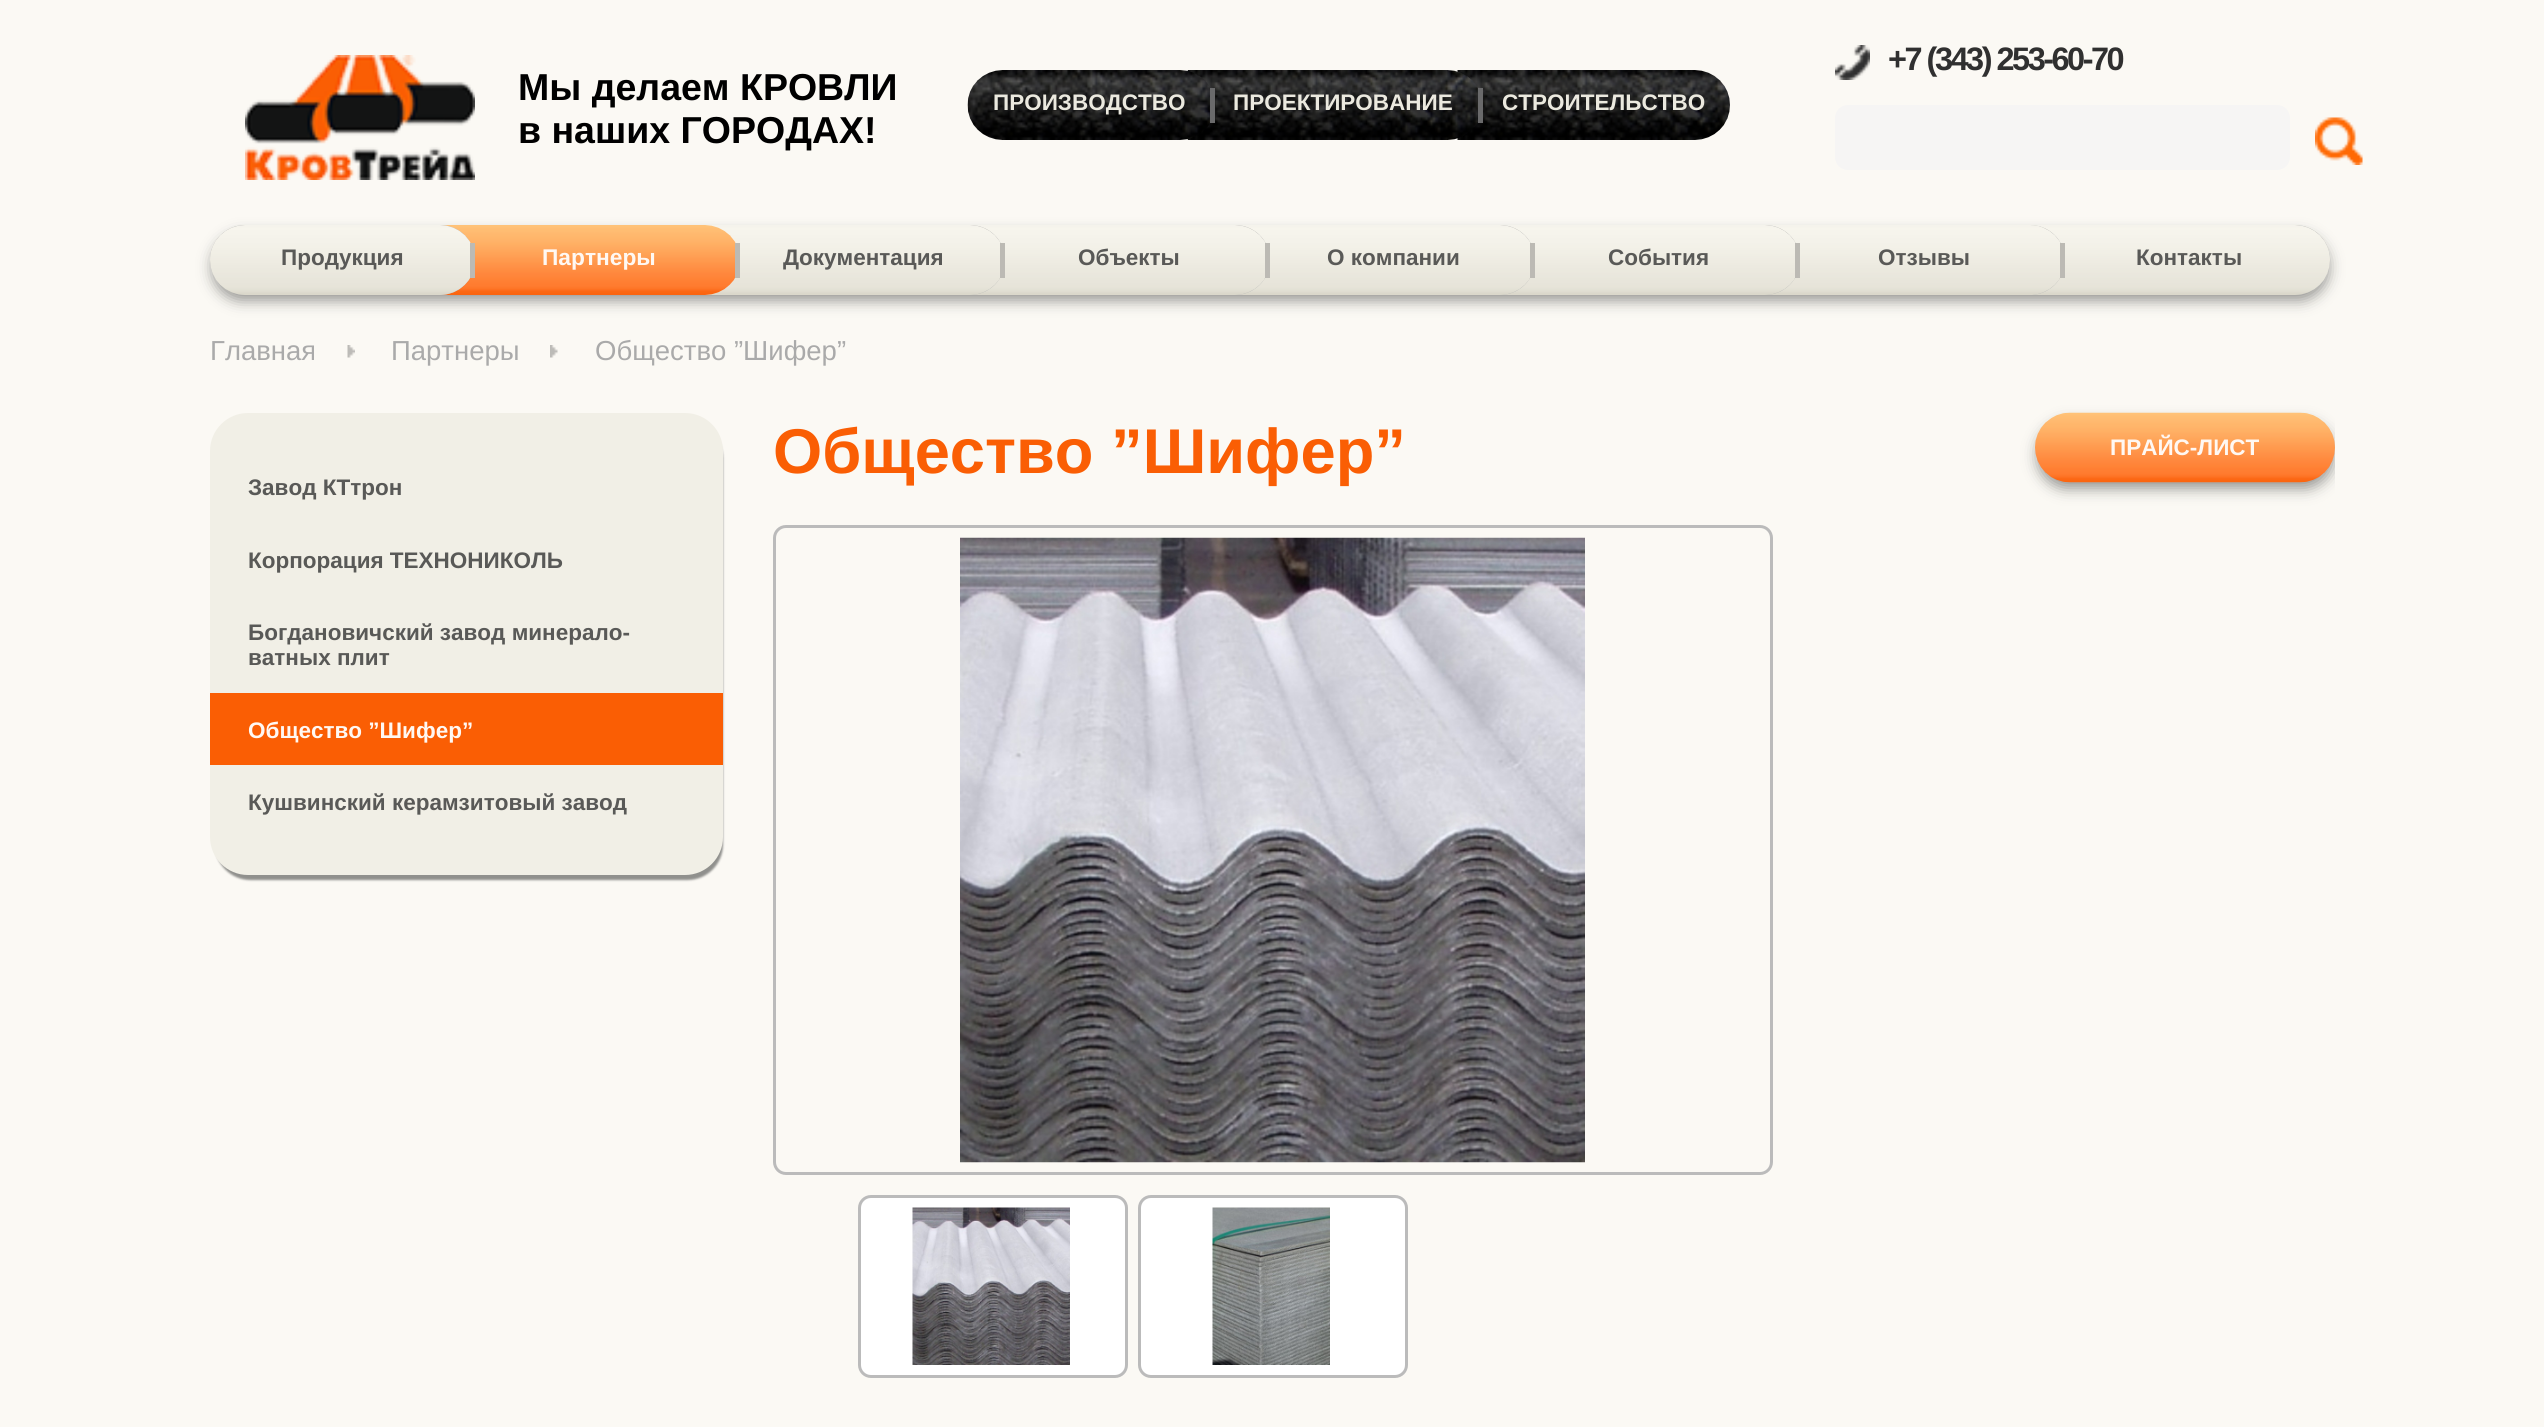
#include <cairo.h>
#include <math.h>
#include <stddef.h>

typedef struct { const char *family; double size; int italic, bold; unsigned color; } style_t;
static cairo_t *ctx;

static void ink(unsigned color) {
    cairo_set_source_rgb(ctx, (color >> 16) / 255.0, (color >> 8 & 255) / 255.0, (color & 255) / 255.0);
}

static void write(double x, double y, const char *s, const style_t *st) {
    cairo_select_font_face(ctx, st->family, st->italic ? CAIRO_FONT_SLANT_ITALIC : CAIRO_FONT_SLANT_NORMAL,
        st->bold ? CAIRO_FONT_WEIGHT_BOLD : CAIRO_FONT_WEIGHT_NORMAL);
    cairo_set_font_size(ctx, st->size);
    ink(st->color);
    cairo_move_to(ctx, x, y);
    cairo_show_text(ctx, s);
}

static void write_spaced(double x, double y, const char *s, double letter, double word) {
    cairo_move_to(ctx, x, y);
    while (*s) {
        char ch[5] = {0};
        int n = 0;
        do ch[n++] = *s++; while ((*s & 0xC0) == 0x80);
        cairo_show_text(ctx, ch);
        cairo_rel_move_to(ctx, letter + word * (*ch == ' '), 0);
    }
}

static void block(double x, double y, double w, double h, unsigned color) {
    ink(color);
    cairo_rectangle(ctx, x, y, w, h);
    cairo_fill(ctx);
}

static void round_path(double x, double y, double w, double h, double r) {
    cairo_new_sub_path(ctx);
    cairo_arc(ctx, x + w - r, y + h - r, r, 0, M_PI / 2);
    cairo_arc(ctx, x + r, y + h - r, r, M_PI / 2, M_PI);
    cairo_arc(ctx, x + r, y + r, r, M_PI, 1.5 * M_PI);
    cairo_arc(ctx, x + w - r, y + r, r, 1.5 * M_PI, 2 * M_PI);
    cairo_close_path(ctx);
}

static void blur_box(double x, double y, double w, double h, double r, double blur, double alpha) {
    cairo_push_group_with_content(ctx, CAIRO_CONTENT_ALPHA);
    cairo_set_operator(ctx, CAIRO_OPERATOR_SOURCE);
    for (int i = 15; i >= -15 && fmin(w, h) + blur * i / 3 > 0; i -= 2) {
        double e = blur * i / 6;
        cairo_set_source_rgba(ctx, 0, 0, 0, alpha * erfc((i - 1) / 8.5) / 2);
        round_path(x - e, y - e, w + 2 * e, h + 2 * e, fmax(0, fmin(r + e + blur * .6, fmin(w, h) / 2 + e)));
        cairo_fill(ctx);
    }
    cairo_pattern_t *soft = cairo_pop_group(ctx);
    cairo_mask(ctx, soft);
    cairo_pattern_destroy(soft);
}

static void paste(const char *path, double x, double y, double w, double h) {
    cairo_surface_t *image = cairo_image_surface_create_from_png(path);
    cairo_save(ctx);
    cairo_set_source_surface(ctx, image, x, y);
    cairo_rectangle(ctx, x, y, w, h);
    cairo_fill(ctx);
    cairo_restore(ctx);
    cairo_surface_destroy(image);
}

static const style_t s1 = {"Liberation Sans", 37.5, 0, 1, 0x000000};
static const style_t s2 = {"Liberation Sans", 22.5, 0, 1, 0xebe9df};
static const style_t s3 = {"Liberation Sans", 22.5, 0, 1, 0x595957};
static const style_t s4 = {"Liberation Sans", 22.75, 0, 1, 0xfff8f3};
static const style_t s5 = {"Liberation Sans", 27.5, 0, 0, 0xaaaaaa};
static const style_t s6 = {"Liberation Sans", 63.25, 0, 1, 0xfa5e04};
static const style_t s7 = {"Liberation Sans", 22.5, 0, 1, 0xfff8f3};

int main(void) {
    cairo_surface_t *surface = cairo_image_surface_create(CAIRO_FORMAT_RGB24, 2544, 1427);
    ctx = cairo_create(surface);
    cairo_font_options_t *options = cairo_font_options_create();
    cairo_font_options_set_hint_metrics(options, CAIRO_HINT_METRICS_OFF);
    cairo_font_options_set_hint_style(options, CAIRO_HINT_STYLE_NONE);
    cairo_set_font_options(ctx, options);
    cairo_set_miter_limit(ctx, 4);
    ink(0xfbf9f4);
    cairo_paint(ctx);
    paste("pic1.png", 245, 55, 230, 125);
    write(518, 100, "Мы делаем КРОВЛИ", &s1);
    write(518, 143, "в наших ГОРОДАХ!", &s1);
    paste("pic4.png", 1457, 70, 273, 70);
    paste("pic3.png", 1187, 70, 291, 70);
    paste("pic2.png", 967, 70, 244, 70);
    block(1210, 88, 5, 35, 0x6a6a6b);
    write(993, 110, "ПРОИЗВОДСТВО", &s2);
    block(1478, 88, 5, 35, 0x6a6a6b);
    write(1233, 110, "ПРОЕКТИРОВАНИЕ", &s2);
    write(1502, 110, "СТРОИТЕЛЬСТВО", &s2);
    paste("pic5.png", 1835, 45, 35, 35);
    cairo_set_font_size(ctx, 32.5);
    ink(0x303030);
    write_spaced(1888, 70, "+7 (343) 253-60-70", -2.5, 0);
    ink(0xf6f5f4);
    round_path(1835, 105, 455, 65, 13);
    cairo_fill(ctx);
    paste("pic6.png", 2315, 117, 48, 48);
    ink(0x90908d);
    blur_box(213, 235, 2115, 65, 32.5, 7.5, 1);
    ink(0xbfbebb);
    cairo_new_path(ctx);
    cairo_move_to(ctx, 2028, 225);
    cairo_line_to(ctx, 2295, 225);
    cairo_curve_to(ctx, 2314.5, 225, 2330, 240.5, 2330, 260);
    cairo_curve_to(ctx, 2330, 279.5, 2314.5, 295, 2295, 295);
    cairo_line_to(ctx, 2028, 295);
    cairo_close_path(ctx);
    cairo_fill(ctx);
    paste("pic13.png", 2030, 225, 300, 70);
    cairo_new_path(ctx);
    cairo_move_to(ctx, 1763, 225);
    cairo_line_to(ctx, 2030, 225);
    cairo_curve_to(ctx, 2049.5, 225, 2065, 240.5, 2065, 260);
    cairo_curve_to(ctx, 2065, 279.5, 2049.5, 295, 2030, 295);
    cairo_line_to(ctx, 1763, 295);
    cairo_close_path(ctx);
    cairo_fill(ctx);
    paste("pic12.png", 1765, 225, 296, 70);
    cairo_new_path(ctx);
    cairo_move_to(ctx, 1498, 225);
    cairo_line_to(ctx, 1765, 225);
    cairo_curve_to(ctx, 1784.5, 225, 1800, 240.5, 1800, 260);
    cairo_curve_to(ctx, 1800, 279.5, 1784.5, 295, 1765, 295);
    cairo_line_to(ctx, 1498, 295);
    cairo_close_path(ctx);
    cairo_fill(ctx);
    paste("pic11.png", 1500, 225, 296, 70);
    cairo_new_path(ctx);
    cairo_move_to(ctx, 1233, 225);
    cairo_line_to(ctx, 1500, 225);
    cairo_curve_to(ctx, 1519.5, 225, 1535, 240.5, 1535, 260);
    cairo_curve_to(ctx, 1535, 279.5, 1519.5, 295, 1500, 295);
    cairo_line_to(ctx, 1233, 295);
    cairo_close_path(ctx);
    cairo_fill(ctx);
    paste("pic10.png", 1235, 225, 296, 70);
    cairo_new_path(ctx);
    cairo_move_to(ctx, 968, 225);
    cairo_line_to(ctx, 1235, 225);
    cairo_curve_to(ctx, 1254.5, 225, 1270, 240.5, 1270, 260);
    cairo_curve_to(ctx, 1270, 279.5, 1254.5, 295, 1235, 295);
    cairo_line_to(ctx, 968, 295);
    cairo_close_path(ctx);
    cairo_fill(ctx);
    paste("pic9.png", 970, 225, 296, 70);
    cairo_new_path(ctx);
    cairo_move_to(ctx, 703, 225);
    cairo_line_to(ctx, 970, 225);
    cairo_curve_to(ctx, 989.5, 225, 1005, 240.5, 1005, 260);
    cairo_curve_to(ctx, 1005, 279.5, 989.5, 295, 970, 295);
    cairo_line_to(ctx, 703, 295);
    cairo_close_path(ctx);
    cairo_fill(ctx);
    paste("pic9.png", 705, 225, 296, 70);
    paste("pic8.png", 440, 225, 296, 70);
    round_path(210, 225, 265, 70, 35);
    cairo_fill(ctx);
    paste("pic7.png", 210, 225, 261, 70);
    block(470, 243, 5, 35, 0xbcbab4);
    write(281, 265, "Продукция", &s3);
    block(735, 243, 5, 35, 0xbcbab4);
    write(542, 265, "Партнеры", &s4);
    block(1000, 243, 5, 35, 0xbcbab4);
    write(783, 265, "Документация", &s3);
    block(1265, 243, 5, 35, 0xbcbab4);
    write(1078, 265, "Объекты", &s3);
    block(1530, 243, 5, 35, 0xbcbab4);
    write(1327, 265, "О компании", &s3);
    block(1795, 243, 5, 35, 0xbcbab4);
    write(1608, 265, "События", &s3);
    block(2060, 243, 5, 35, 0xbcbab4);
    write(1878, 265, "Отзывы", &s3);
    write(2136, 265, "Контакты", &s3);
    paste("pic14.png", 347, 345, 8, 13);
    write(210, 360, "Главная", &s5);
    paste("pic15.png", 550, 345, 8, 13);
    write(391, 360, "Партнеры", &s5);
    write(595, 360, "Общество ”Шифер”", &s5);
    write(773, 473, "Общество ”Шифер”", &s6);
    cairo_save(ctx);
    cairo_rectangle(ctx, 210, 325, 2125, 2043);
    cairo_clip(ctx);
    ink(0x90908d);
    blur_box(2038, 423, 295, 65, 32.5, 7.5, 1);
    cairo_restore(ctx);
    paste("pic16.png", 2035, 412, 300, 71);
    write(2110, 455, "ПРАЙС-ЛИСТ", &s7);
    round_path(774.5, 526.5, 997, 647, 11.5);
    ink(0xbbbbbb);
    cairo_set_line_width(ctx, 3);
    cairo_stroke(ctx);
    paste("pic17.png", 960, 537, 625, 626);
    ink(0xffffff);
    round_path(859.5, 1196.5, 267, 180, 11.5);
    cairo_fill_preserve(ctx);
    ink(0xbbbbbb);
    cairo_stroke(ctx);
    paste("pic18.png", 912, 1207, 158, 158);
    ink(0xffffff);
    round_path(1139.5, 1196.5, 267, 180, 11.5);
    cairo_fill_preserve(ctx);
    ink(0xbbbbbb);
    cairo_stroke(ctx);
    paste("pic19.png", 1212, 1207, 118, 158);
    ink(0x90908d);
    blur_box(215, 423, 508, 457, 35, 1, 1);
    ink(0xf1efe6);
    round_path(210, 413, 513, 462, 38);
    cairo_fill(ctx);
    write(248, 495, "Завод КТтрон", &s3);
    write(248, 568, "Корпорация ТЕХНОНИКОЛЬ", &s3);
    write(248, 640, "Богдановичский завод минерало-", &s3);
    write(248, 665, "ватных плит", &s3);
    block(210, 693, 513, 72, 0xfa5e04);
    write(248, 738, "Общество ”Шифер”", &s7);
    write(248, 810, "Кушвинский керамзитовый завод", &s3);
    cairo_surface_write_to_png(surface, "screenshot.png");
    cairo_font_options_destroy(options);
    cairo_destroy(ctx);
    cairo_surface_destroy(surface);
    return 0;
}
